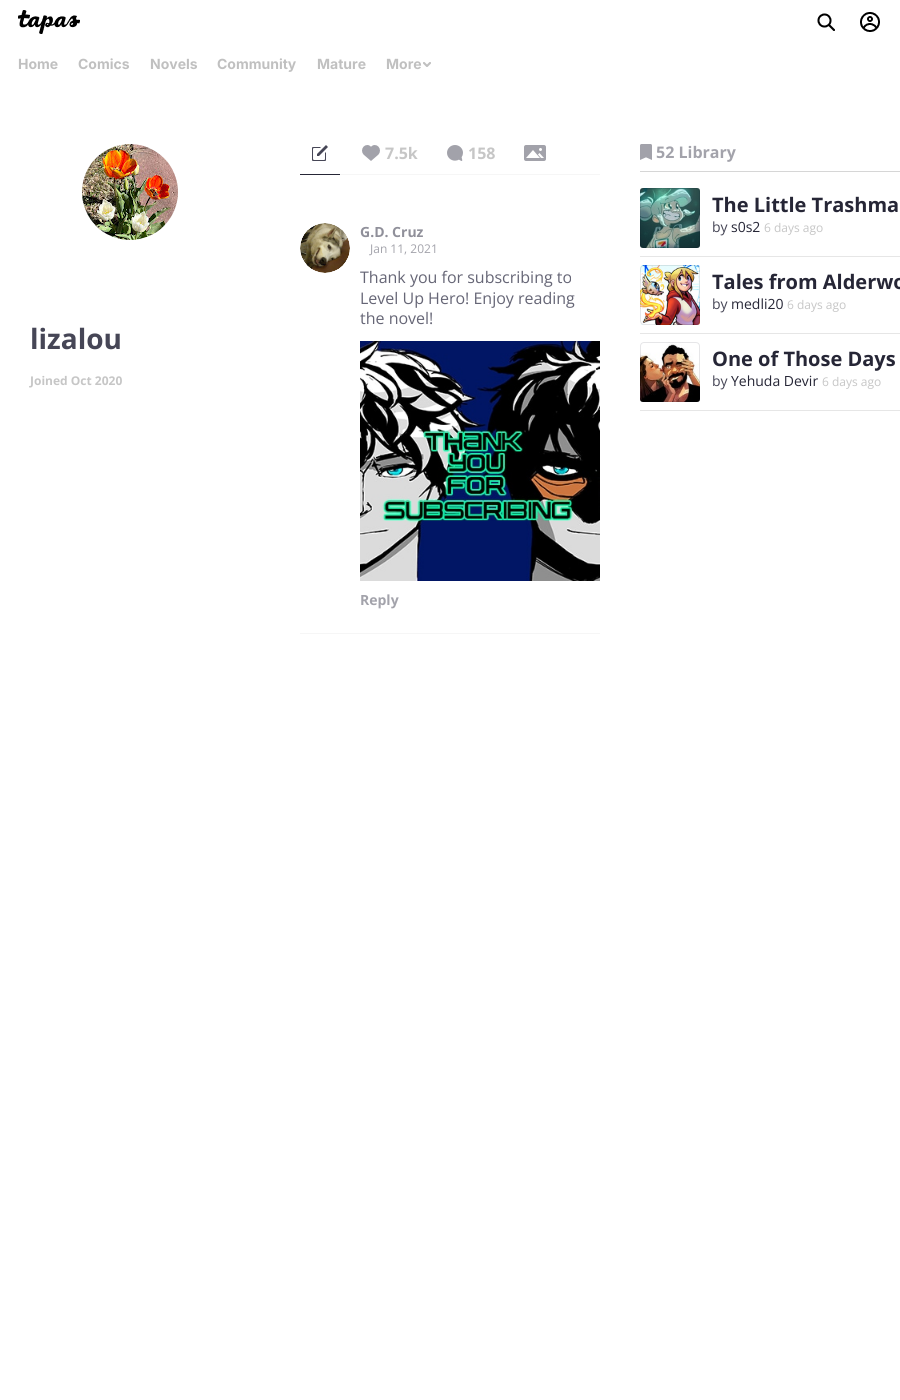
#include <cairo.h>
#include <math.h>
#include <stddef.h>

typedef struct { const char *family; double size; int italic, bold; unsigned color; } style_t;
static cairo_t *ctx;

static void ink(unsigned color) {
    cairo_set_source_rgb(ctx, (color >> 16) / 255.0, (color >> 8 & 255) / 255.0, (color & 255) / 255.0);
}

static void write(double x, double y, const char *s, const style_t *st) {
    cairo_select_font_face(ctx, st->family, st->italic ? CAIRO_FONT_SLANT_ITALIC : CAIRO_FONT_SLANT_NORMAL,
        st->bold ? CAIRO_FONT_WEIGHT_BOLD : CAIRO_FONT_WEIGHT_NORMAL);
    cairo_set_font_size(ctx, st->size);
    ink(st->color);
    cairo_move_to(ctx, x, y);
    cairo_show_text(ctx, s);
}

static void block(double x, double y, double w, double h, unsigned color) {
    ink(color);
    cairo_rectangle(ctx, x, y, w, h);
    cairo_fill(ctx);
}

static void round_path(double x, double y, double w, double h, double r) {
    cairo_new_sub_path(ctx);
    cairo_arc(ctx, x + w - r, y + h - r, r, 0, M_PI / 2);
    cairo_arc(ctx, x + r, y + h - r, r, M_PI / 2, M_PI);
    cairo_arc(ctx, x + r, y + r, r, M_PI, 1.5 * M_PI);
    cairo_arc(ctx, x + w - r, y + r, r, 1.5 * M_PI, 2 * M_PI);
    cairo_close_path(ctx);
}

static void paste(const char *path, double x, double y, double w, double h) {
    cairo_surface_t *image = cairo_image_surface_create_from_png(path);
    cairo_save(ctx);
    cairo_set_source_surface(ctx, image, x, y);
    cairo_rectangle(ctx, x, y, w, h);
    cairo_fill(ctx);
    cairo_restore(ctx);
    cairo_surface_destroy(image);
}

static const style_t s1 = {"Inter", 14, 0, 1, 0xc0c0c0};
static const style_t s2 = {"Open Sans", 28, 0, 1, 0x464656};
static const style_t s3 = {"Open Sans", 12, 0, 1, 0xc6c6c6};
static const style_t s4 = {"Open Sans", 16, 0, 1, 0xc6c6c6};
static const style_t s5 = {"Open Sans", 16, 0, 1, 0xa3a3ab};
static const style_t s6 = {"Open Sans", 20, 0, 1, 0x262636};
static const style_t s7 = {"Open Sans", 14, 0, 0, 0x464656};
static const style_t s8 = {"Open Sans", 14, 0, 0, 0x262636};
static const style_t s9 = {"Open Sans", 12, 0, 0, 0xc6c6c6};
static const style_t s10 = {"Open Sans", 14, 0, 1, 0x90909a};
static const style_t s11 = {"Open Sans", 12, 0, 0, 0xa3a3ab};
static const style_t s12 = {"Open Sans", 16, 0, 0, 0x666676};
static const style_t s13 = {"Open Sans", 14, 0, 1, 0xa3a3ab};

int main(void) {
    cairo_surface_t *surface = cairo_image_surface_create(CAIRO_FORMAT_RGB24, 900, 1400);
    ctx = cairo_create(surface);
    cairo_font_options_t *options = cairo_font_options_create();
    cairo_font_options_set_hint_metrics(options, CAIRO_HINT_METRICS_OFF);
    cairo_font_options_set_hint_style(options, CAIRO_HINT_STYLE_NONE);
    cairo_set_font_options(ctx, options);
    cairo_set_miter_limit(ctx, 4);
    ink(0xffffff);
    cairo_paint(ctx);
    paste("pic1.png", 18, 10, 62, 24);
    paste("pic2.png", 817, 13, 18, 18);
    paste("pic3.png", 860, 12, 20, 20);
    write(18, 69, "Home", &s1);
    write(78, 69, "Comics", &s1);
    write(150, 69, "Novels", &s1);
    write(217, 69, "Community", &s1);
    write(317, 69, "Mature", &s1);
    write(386, 69, "More", &s1);
    paste("pic4.png", 423, 62, 8, 5);
    paste("pic5.png", 82, 144, 96, 96);
    write(30, 349, "lizalou", &s2);
    write(30, 385, "Joined Oct 2020", &s3);
    block(340, 174, 260, 1, 0xf6f6f6);
    block(300, 174, 40, 1, 0x262636);
    paste("pic6.png", 312, 145, 16, 16);
    paste("pic7.png", 362, 145, 18, 16);
    write(385, 159, "7.5k", &s4);
    paste("pic8.png", 447, 145, 16, 16);
    write(468, 159, "158", &s4);
    paste("pic9.png", 524, 145, 22, 16);
    block(640, 171, 260, 1, 0xd6d6d6);
    paste("pic10.png", 640, 144, 12, 16);
    write(656, 158, "52 Library", &s5);
    block(640, 256, 260, 1, 0xe6e6e6);
    paste("pic11.png", 640, 188, 60, 60);
    round_path(640.5, 188.5, 59, 59, 3.5);
    cairo_set_source_rgba(ctx, 0.024, 0.024, 0.086, 0.1);
    cairo_set_line_width(ctx, 1);
    cairo_stroke(ctx);
    write(712, 212, "The Little Trashma", &s6);
    write(712, 232, "by", &s7);
    write(731, 232, "s0s2", &s8);
    write(764, 232, "6 days ago", &s9);
    block(640, 333, 260, 1, 0xe6e6e6);
    paste("pic12.png", 640, 265, 60, 60);
    round_path(640.5, 265.5, 59, 59, 3.5);
    cairo_set_source_rgba(ctx, 0.024, 0.024, 0.086, 0.1);
    cairo_stroke(ctx);
    write(712, 289, "Tales from Alderwo", &s6);
    write(712, 309, "by", &s7);
    write(731, 309, "medli20", &s8);
    write(787, 309, "6 days ago", &s9);
    block(640, 410, 260, 1, 0xe6e6e6);
    paste("pic13.png", 640, 342, 60, 60);
    round_path(640.5, 342.5, 59, 59, 3.5);
    cairo_set_source_rgba(ctx, 0.024, 0.024, 0.086, 0.1);
    cairo_stroke(ctx);
    write(712, 366, "One of Those Days", &s6);
    write(712, 386, "by", &s7);
    write(731, 386, "Yehuda Devir", &s8);
    write(822, 386, "6 days ago", &s9);
    block(300, 633, 300, 1, 0xf6f6f6);
    paste("pic14.png", 300, 223, 50, 50);
    write(360, 237, "G.D. Cruz", &s10);
    write(370, 253, "Jan 11, 2021", &s11);
    write(360, 283, "Thank you for subscribing to", &s12);
    write(360, 304, "Level Up Hero! Enjoy reading", &s12);
    write(360, 324, "the novel!", &s12);
    paste("pic15.png", 360, 341, 240, 240);
    write(360, 605, "Reply", &s13);
    cairo_surface_write_to_png(surface, "screenshot.png");
    cairo_font_options_destroy(options);
    cairo_destroy(ctx);
    cairo_surface_destroy(surface);
    return 0;
}
